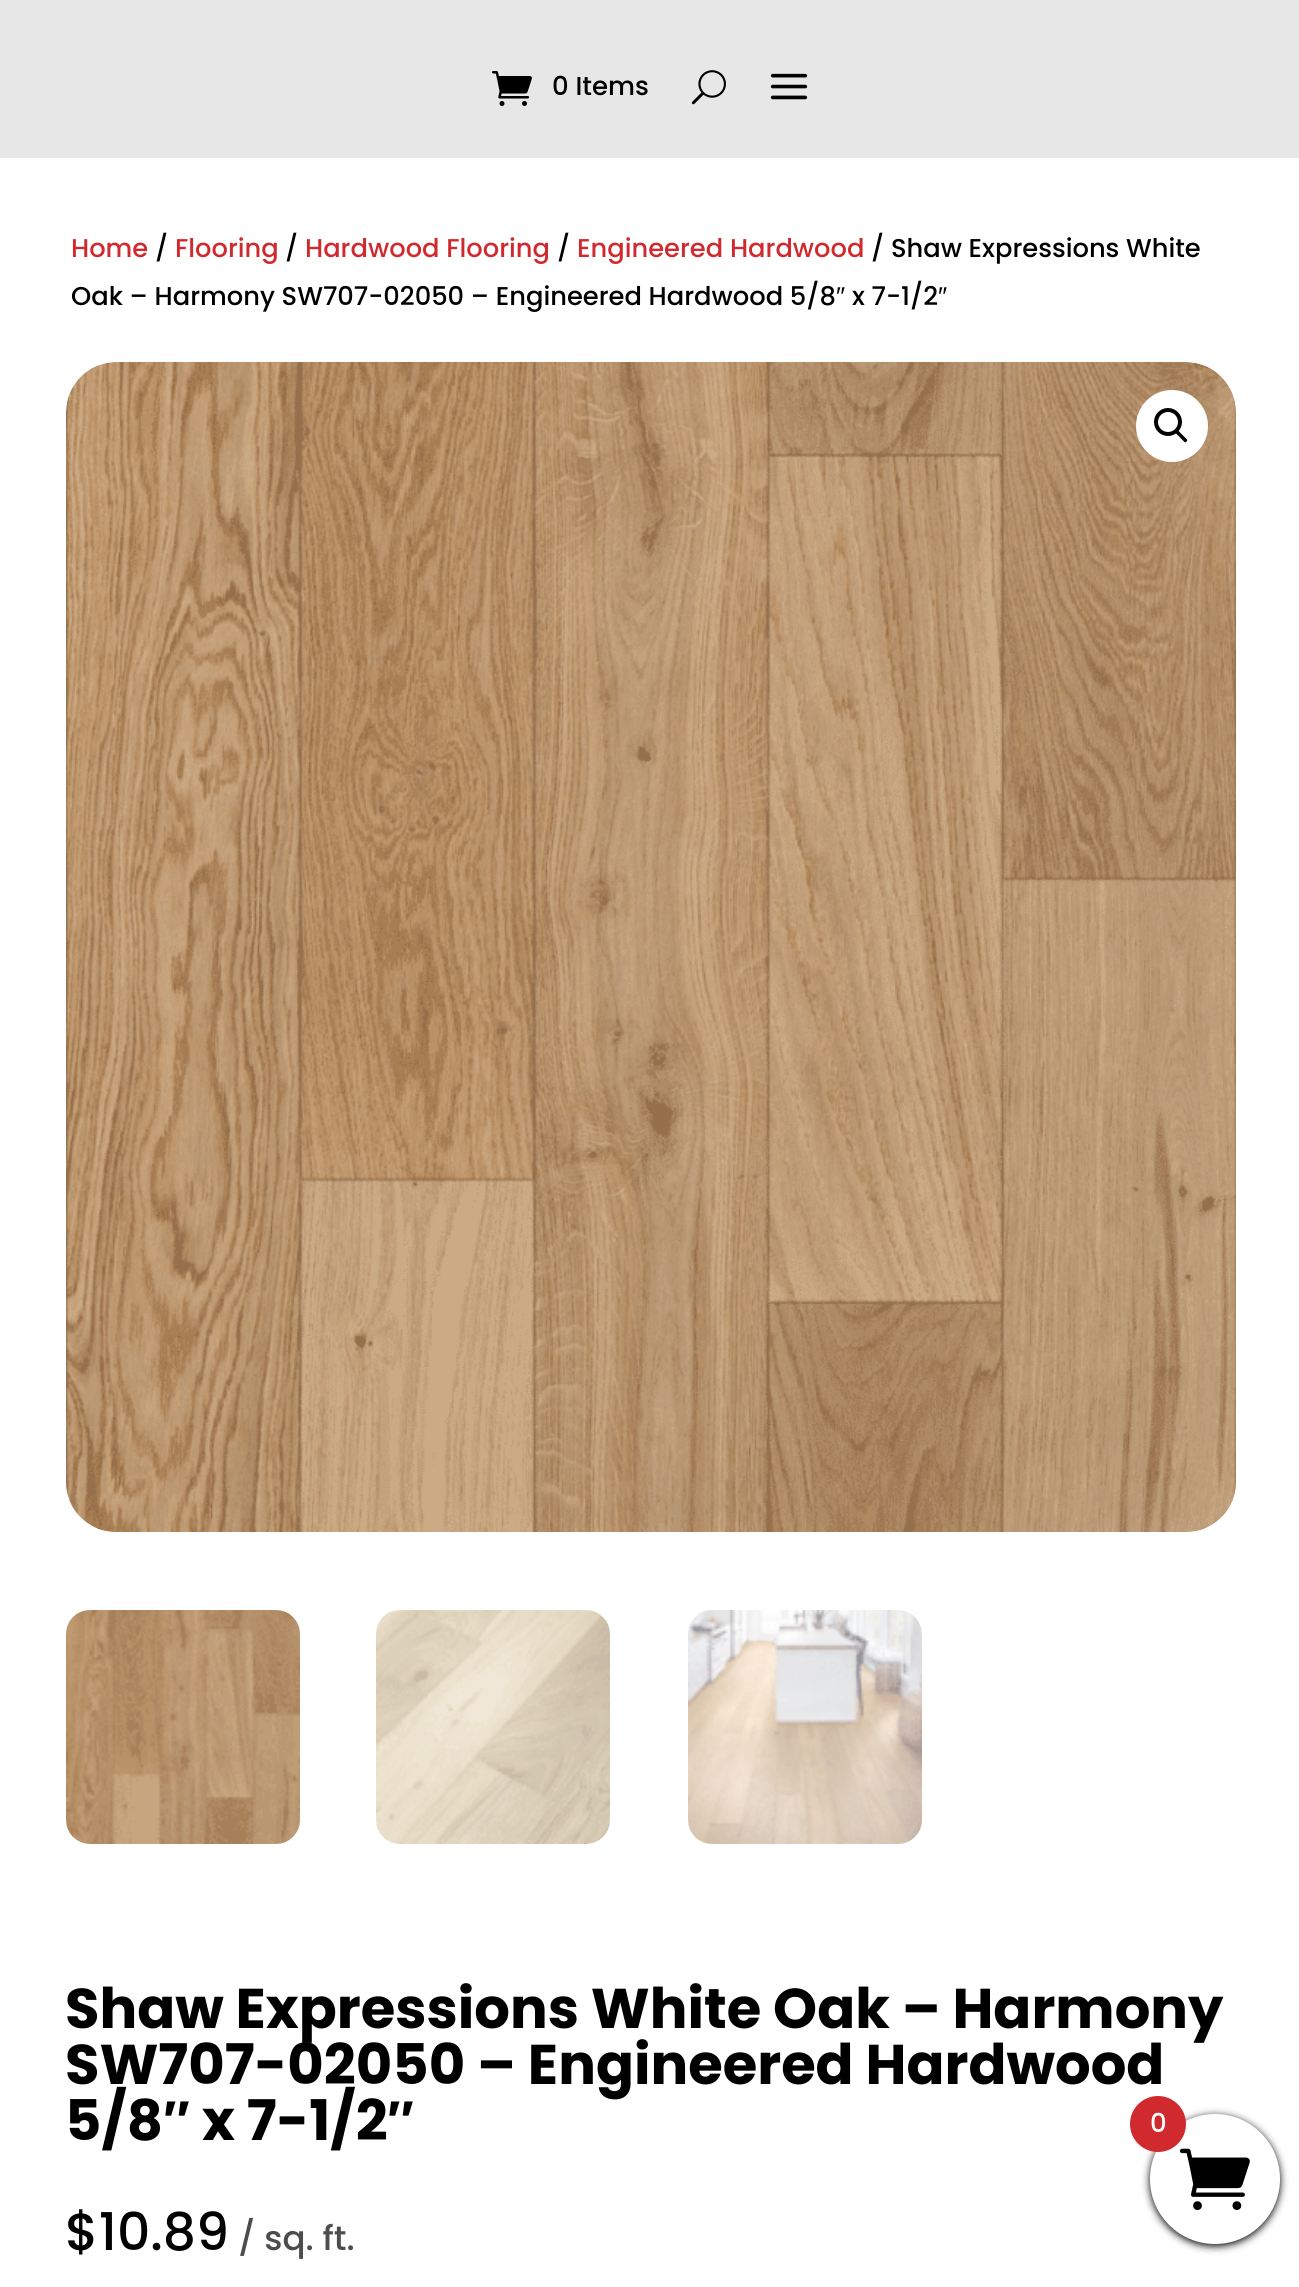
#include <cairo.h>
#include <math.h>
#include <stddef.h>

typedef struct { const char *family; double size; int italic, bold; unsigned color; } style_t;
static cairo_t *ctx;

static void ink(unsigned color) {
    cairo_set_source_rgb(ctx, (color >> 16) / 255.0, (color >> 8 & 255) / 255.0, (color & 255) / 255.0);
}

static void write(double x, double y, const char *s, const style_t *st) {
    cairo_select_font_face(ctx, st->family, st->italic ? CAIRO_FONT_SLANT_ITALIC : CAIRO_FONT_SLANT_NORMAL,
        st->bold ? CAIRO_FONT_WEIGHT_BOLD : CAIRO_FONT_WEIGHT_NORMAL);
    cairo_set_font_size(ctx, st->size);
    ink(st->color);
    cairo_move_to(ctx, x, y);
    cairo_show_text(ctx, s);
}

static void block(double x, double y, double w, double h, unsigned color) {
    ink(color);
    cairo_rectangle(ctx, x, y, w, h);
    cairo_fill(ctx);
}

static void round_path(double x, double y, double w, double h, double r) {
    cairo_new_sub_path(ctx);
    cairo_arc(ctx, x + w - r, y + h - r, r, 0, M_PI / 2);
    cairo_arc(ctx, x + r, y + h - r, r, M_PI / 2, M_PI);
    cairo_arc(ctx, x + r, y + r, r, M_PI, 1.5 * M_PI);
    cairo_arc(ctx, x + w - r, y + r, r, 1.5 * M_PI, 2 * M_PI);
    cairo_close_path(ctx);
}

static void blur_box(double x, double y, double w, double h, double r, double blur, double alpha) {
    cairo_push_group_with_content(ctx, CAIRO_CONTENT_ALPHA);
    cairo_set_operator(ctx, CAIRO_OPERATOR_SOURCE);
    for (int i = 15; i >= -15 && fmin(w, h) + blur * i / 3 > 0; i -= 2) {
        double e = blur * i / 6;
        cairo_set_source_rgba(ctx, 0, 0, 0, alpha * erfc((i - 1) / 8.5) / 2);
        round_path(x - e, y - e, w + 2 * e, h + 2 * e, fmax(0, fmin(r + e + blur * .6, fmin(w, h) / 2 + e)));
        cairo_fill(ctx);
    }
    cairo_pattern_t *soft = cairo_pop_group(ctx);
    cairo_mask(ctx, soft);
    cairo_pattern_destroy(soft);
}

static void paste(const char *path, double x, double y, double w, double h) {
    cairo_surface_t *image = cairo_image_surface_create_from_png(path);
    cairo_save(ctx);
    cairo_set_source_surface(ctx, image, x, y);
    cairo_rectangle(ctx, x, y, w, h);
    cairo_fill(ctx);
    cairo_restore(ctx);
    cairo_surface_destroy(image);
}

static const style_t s1 = {"Poppins Medium", 26, 0, 0, 0x000000};
static const style_t s2 = {"Poppins Medium", 25.75, 0, 0, 0xd02a2f};
static const style_t s3 = {"Poppins Medium", 25.75, 0, 0, 0x000000};
static const style_t s4 = {"Liberation Sans", 25.75, 0, 0, 0x000000};
static const style_t s5 = {"Poppins", 56, 0, 1, 0x000000};
static const style_t s6 = {"Liberation Sans", 56, 0, 1, 0x000000};
static const style_t s7 = {"Poppins Medium", 52, 0, 0, 0x000000};
static const style_t s8 = {"Poppins Medium", 34, 0, 0, 0x4d4d4d};
static const style_t s9 = {"Poppins Medium", 26, 0, 0, 0xffffff};

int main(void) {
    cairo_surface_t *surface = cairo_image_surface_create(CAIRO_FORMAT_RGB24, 1299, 2287);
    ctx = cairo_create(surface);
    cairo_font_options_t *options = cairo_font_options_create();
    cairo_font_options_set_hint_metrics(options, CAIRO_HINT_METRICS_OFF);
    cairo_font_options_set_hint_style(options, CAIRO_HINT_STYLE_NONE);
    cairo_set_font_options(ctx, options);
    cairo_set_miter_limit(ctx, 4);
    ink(0xffffff);
    cairo_paint(ctx);
    block(0, 0, 1299, 158, 0xe7e7e7);
    paste("pic1.png", 491, 71, 41, 35);
    write(552, 95, "0 Items", &s1);
    paste("pic2.png", 691, 70, 35, 35);
    paste("pic3.png", 770, 73, 38, 27);
    write(71, 257, "Home", &s2);
    write(155, 257, "/", &s3);
    write(175, 257, "Flooring", &s2);
    write(285, 257, "/", &s3);
    write(305, 257, "Hardwood Flooring", &s2);
    write(557, 257, "/", &s3);
    write(577, 257, "Engineered Hardwood", &s2);
    write(871, 257, "/ Shaw Expressions White", &s3);
    write(71, 305, "Oak – Harmony SW707-02050 – Engineered Hardwood 5/8", &s3);
    write(836, 305, "″", &s4);
    write(852, 305, "x 7-1/2", &s3);
    write(938, 305, "″", &s4);
    paste("pic4.png", 66, 362, 1170, 1170);
    ink(0xffffff);
    cairo_arc(ctx, 1172, 426, 36, 0, 2 * M_PI);
    cairo_fill(ctx);
    cairo_arc(ctx, 1168, 422, 12, 0, 2 * M_PI);
    ink(0x000000);
    cairo_set_line_width(ctx, 4);
    cairo_stroke(ctx);
    cairo_new_path(ctx);
    cairo_move_to(ctx, 1175.5, 430.5);
    cairo_curve_to(ctx, 1176, 429.5, 1177.5, 429.5, 1178, 430.5);
    cairo_line_to(ctx, 1186.5, 439);
    cairo_curve_to(ctx, 1187.5, 439.5, 1187.5, 441, 1186.5, 441.5);
    cairo_curve_to(ctx, 1186, 442.5, 1184.5, 442.5, 1184, 441.5);
    cairo_line_to(ctx, 1175.5, 433);
    cairo_curve_to(ctx, 1174.5, 432.5, 1174.5, 431, 1175.5, 430.5);
    cairo_close_path(ctx);
    cairo_fill(ctx);
    paste("pic5.png", 66, 1610, 234, 234);
    paste("pic6.png", 376, 1610, 234, 234);
    paste("pic7.png", 688, 1610, 234, 234);
    write(65, 2028, "Shaw Expressions White Oak – Harmony", &s5);
    write(65, 2084, "SW707-02050 – Engineered Hardwood", &s5);
    write(65, 2140, "5/8", &s5);
    write(163, 2140, "″", &s6);
    write(202, 2140, "x 7-1/2", &s5);
    write(387, 2140, "″", &s6);
    write(65, 2250, "$10.89", &s7);
    write(238, 2250, "/ sq. ft.", &s8);
    ink(0x000000);
    blur_box(1150, 2116, 130, 130, 65, 4, 1);
    ink(0xffffff);
    cairo_arc(ctx, 1215, 2179, 65, 0, 2 * M_PI);
    cairo_fill(ctx);
    paste("pic8.png", 1179, 2148, 71, 62);
    ink(0xd02a2f);
    cairo_arc(ctx, 1158, 2124, 28, 0, 2 * M_PI);
    cairo_fill(ctx);
    write(1150, 2132, "0", &s9);
    cairo_surface_write_to_png(surface, "screenshot.png");
    cairo_font_options_destroy(options);
    cairo_destroy(ctx);
    cairo_surface_destroy(surface);
    return 0;
}
